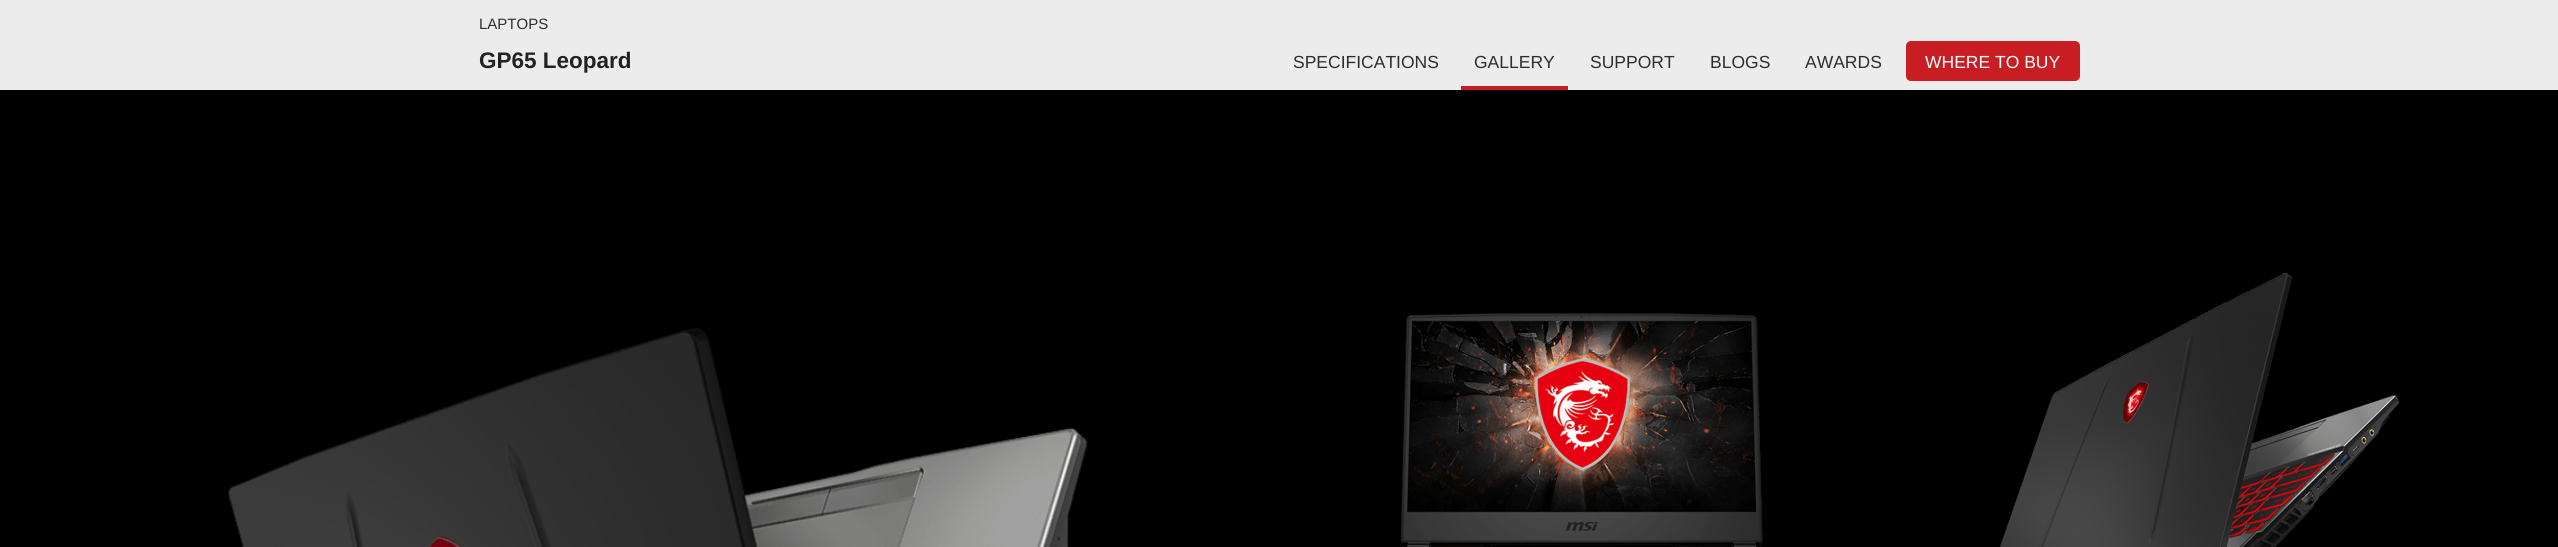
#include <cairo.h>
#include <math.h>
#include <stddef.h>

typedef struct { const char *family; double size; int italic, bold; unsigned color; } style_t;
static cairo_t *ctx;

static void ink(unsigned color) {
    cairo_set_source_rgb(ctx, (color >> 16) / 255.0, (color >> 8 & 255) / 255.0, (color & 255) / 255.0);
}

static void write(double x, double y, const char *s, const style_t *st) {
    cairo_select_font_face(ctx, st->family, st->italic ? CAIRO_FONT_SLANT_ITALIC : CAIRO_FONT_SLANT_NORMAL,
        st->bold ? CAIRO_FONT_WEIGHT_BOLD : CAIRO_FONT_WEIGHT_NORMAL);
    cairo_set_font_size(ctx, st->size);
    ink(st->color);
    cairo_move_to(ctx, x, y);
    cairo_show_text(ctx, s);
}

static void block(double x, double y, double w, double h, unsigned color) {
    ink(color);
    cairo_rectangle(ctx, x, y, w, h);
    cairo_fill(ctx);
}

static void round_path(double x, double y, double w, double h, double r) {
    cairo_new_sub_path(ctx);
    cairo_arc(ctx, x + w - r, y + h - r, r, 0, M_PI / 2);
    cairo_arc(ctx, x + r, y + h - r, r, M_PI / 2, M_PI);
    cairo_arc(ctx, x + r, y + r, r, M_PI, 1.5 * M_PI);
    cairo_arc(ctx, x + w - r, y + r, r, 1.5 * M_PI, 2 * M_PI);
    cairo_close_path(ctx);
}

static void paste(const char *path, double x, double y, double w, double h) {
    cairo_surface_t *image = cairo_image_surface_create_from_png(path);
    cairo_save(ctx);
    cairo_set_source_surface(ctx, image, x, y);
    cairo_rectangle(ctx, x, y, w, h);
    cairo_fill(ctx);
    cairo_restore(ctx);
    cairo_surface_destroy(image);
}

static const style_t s1 = {"Liberation Sans", 15, 0, 0, 0x2e2e2e};
static const style_t s2 = {"Liberation Sans", 22.5, 0, 1, 0x222222};
static const style_t s3 = {"Liberation Sans", 17.5, 0, 0, 0x2e2e2e};
static const style_t s4 = {"Liberation Sans", 17.5, 0, 0, 0xffffff};

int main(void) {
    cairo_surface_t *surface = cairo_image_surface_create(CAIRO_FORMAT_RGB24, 2558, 547);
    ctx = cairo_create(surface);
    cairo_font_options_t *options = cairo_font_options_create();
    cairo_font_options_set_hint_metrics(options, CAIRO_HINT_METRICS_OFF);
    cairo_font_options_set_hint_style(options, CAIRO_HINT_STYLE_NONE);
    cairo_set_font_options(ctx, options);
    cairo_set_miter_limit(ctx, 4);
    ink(0x000000);
    cairo_paint(ctx);
    block(0, 0, 2558, 90, 0xececec);
    write(479, 29, "LAPTOPS", &s1);
    write(479, 68, "GP65 Leopard", &s2);
    write(1293, 68, "SPECIFICATIONS", &s3);
    cairo_save(ctx);
    cairo_rectangle(ctx, 1461, 33, 107, 57);
    cairo_clip(ctx);
    ink(0xc81d22);
    cairo_set_fill_rule(ctx, CAIRO_FILL_RULE_EVEN_ODD);
    cairo_new_path(ctx);
    cairo_move_to(ctx, 1338, -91);
    cairo_line_to(ctx, 1691, -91);
    cairo_line_to(ctx, 1691, 214);
    cairo_line_to(ctx, 1338, 214);
    cairo_close_path(ctx);
    cairo_move_to(ctx, 1461, 26);
    cairo_line_to(ctx, 1568, 26);
    cairo_curve_to(ctx, 1568, 26, 1569, 27, 1569, 28);
    cairo_line_to(ctx, 1569, 85);
    cairo_curve_to(ctx, 1569, 86, 1568, 86, 1568, 86);
    cairo_line_to(ctx, 1461, 86);
    cairo_curve_to(ctx, 1461, 86, 1460, 86, 1460, 85);
    cairo_line_to(ctx, 1460, 28);
    cairo_curve_to(ctx, 1460, 27, 1461, 26, 1461, 26);
    cairo_close_path(ctx);
    cairo_fill(ctx);
    cairo_restore(ctx);
    write(1474, 68, "GALLERY", &s3);
    write(1590, 68, "SUPPORT", &s3);
    write(1710, 68, "BLOGS", &s3);
    write(1805, 68, "AWARDS", &s3);
    ink(0xc81d22);
    round_path(1906, 41, 174, 40, 5);
    cairo_fill(ctx);
    write(1925, 68, "WHERE TO BUY", &s4);
    paste("pic1.png", 228, 328, 860, 219);
    paste("pic2.png", 1400, 313, 363, 234);
    paste("pic3.png", 2000, 273, 400, 274);
    cairo_surface_write_to_png(surface, "screenshot.png");
    cairo_font_options_destroy(options);
    cairo_destroy(ctx);
    cairo_surface_destroy(surface);
    return 0;
}
